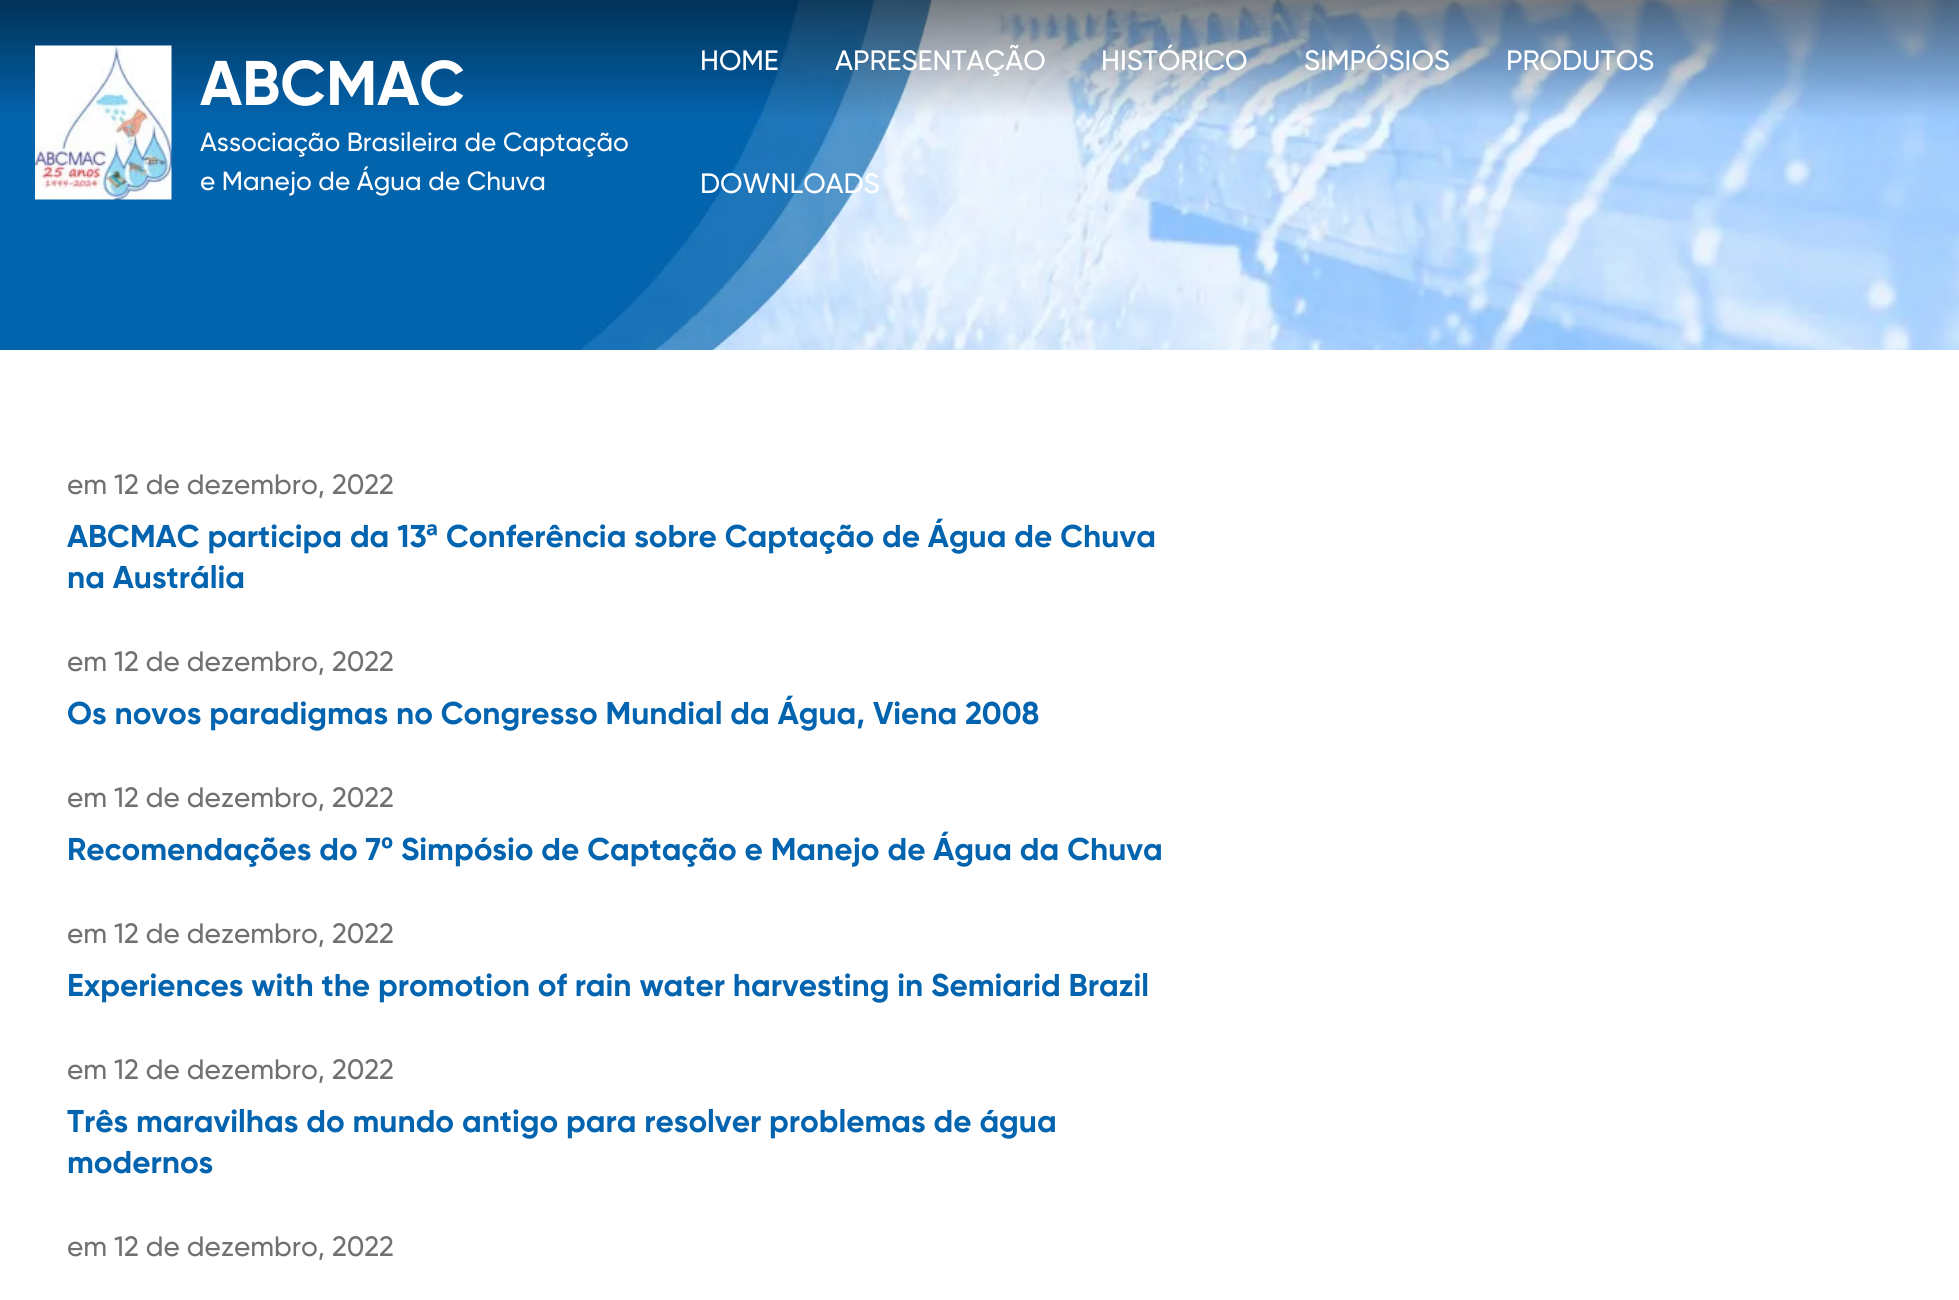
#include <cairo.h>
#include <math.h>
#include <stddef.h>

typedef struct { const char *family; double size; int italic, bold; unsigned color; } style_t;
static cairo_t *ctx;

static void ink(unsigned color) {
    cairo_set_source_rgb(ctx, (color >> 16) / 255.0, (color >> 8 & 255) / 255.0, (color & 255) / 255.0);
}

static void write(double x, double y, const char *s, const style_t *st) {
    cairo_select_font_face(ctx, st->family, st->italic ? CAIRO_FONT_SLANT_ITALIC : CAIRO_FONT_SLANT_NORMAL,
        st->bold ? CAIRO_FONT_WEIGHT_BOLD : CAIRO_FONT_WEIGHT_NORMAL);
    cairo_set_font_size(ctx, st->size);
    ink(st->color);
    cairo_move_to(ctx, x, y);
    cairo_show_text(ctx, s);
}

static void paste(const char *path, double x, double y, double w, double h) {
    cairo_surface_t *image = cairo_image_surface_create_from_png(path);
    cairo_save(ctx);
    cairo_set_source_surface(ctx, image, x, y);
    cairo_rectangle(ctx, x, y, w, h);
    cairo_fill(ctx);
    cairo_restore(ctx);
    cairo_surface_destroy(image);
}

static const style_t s1 = {"Gilroy", 63, 0, 1, 0xffffff};
static const style_t s2 = {"Gilroy Medium", 26.25, 0, 0, 0xffffff};
static const style_t s3 = {"Gilroy Medium", 28, 0, 0, 0xffffff};
static const style_t s4 = {"Gilroy Medium", 28, 0, 0, 0x707070};
static const style_t s5 = {"Gilroy", 31.5, 0, 1, 0x0264af};
static const style_t s6 = {"Open Sans", 31.5, 0, 1, 0x0264af};

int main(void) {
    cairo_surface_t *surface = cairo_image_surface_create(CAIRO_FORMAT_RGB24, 1959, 1300);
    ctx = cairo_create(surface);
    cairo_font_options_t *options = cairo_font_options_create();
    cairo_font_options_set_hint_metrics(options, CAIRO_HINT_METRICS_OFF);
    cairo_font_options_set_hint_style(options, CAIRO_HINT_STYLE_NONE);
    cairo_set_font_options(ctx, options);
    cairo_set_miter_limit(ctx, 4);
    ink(0xffffff);
    cairo_paint(ctx);
    paste("pic2.png", 0, 0, 1959, 350);
    paste("pic1.png", 35, 45, 137, 155);
    write(200, 105, "ABCMAC", &s1);
    write(200, 151, "Associação Brasileira de Captação", &s2);
    write(200, 190, "e Manejo de Água de Chuva", &s2);
    write(700, 70, "HOME", &s3);
    write(835, 70, "APRESENTAÇÃO", &s3);
    write(1101, 70, "HISTÓRICO", &s3);
    write(1304, 70, "SIMPÓSIOS", &s3);
    write(1506, 70, "PRODUTOS", &s3);
    write(700, 193, "DOWNLOADS", &s3);
    write(67, 494, "em 12 de dezembro, 2022", &s4);
    write(67, 547, "ABCMAC participa da 13", &s5);
    write(426, 547, "ª", &s6);
    write(446, 547, "Conferência sobre Captação de Água de Chuva", &s5);
    write(67, 588, "na Austrália", &s5);
    write(67, 671, "em 12 de dezembro, 2022", &s4);
    write(67, 724, "Os novos paradigmas no Congresso Mundial da Água, Viena 2008", &s5);
    write(67, 807, "em 12 de dezembro, 2022", &s4);
    write(67, 860, "Recomendações do 7", &s5);
    write(381, 860, "º", &s6);
    write(401, 860, "Simpósio de Captação e Manejo de Água da Chuva", &s5);
    write(67, 943, "em 12 de dezembro, 2022", &s4);
    write(67, 996, "Experiences with the promotion of rain water harvesting in Semiarid Brazil", &s5);
    write(67, 1079, "em 12 de dezembro, 2022", &s4);
    write(67, 1132, "Três maravilhas do mundo antigo para resolver problemas de água", &s5);
    write(67, 1173, "modernos", &s5);
    write(67, 1256, "em 12 de dezembro, 2022", &s4);
    cairo_surface_write_to_png(surface, "screenshot.png");
    cairo_font_options_destroy(options);
    cairo_destroy(ctx);
    cairo_surface_destroy(surface);
    return 0;
}
